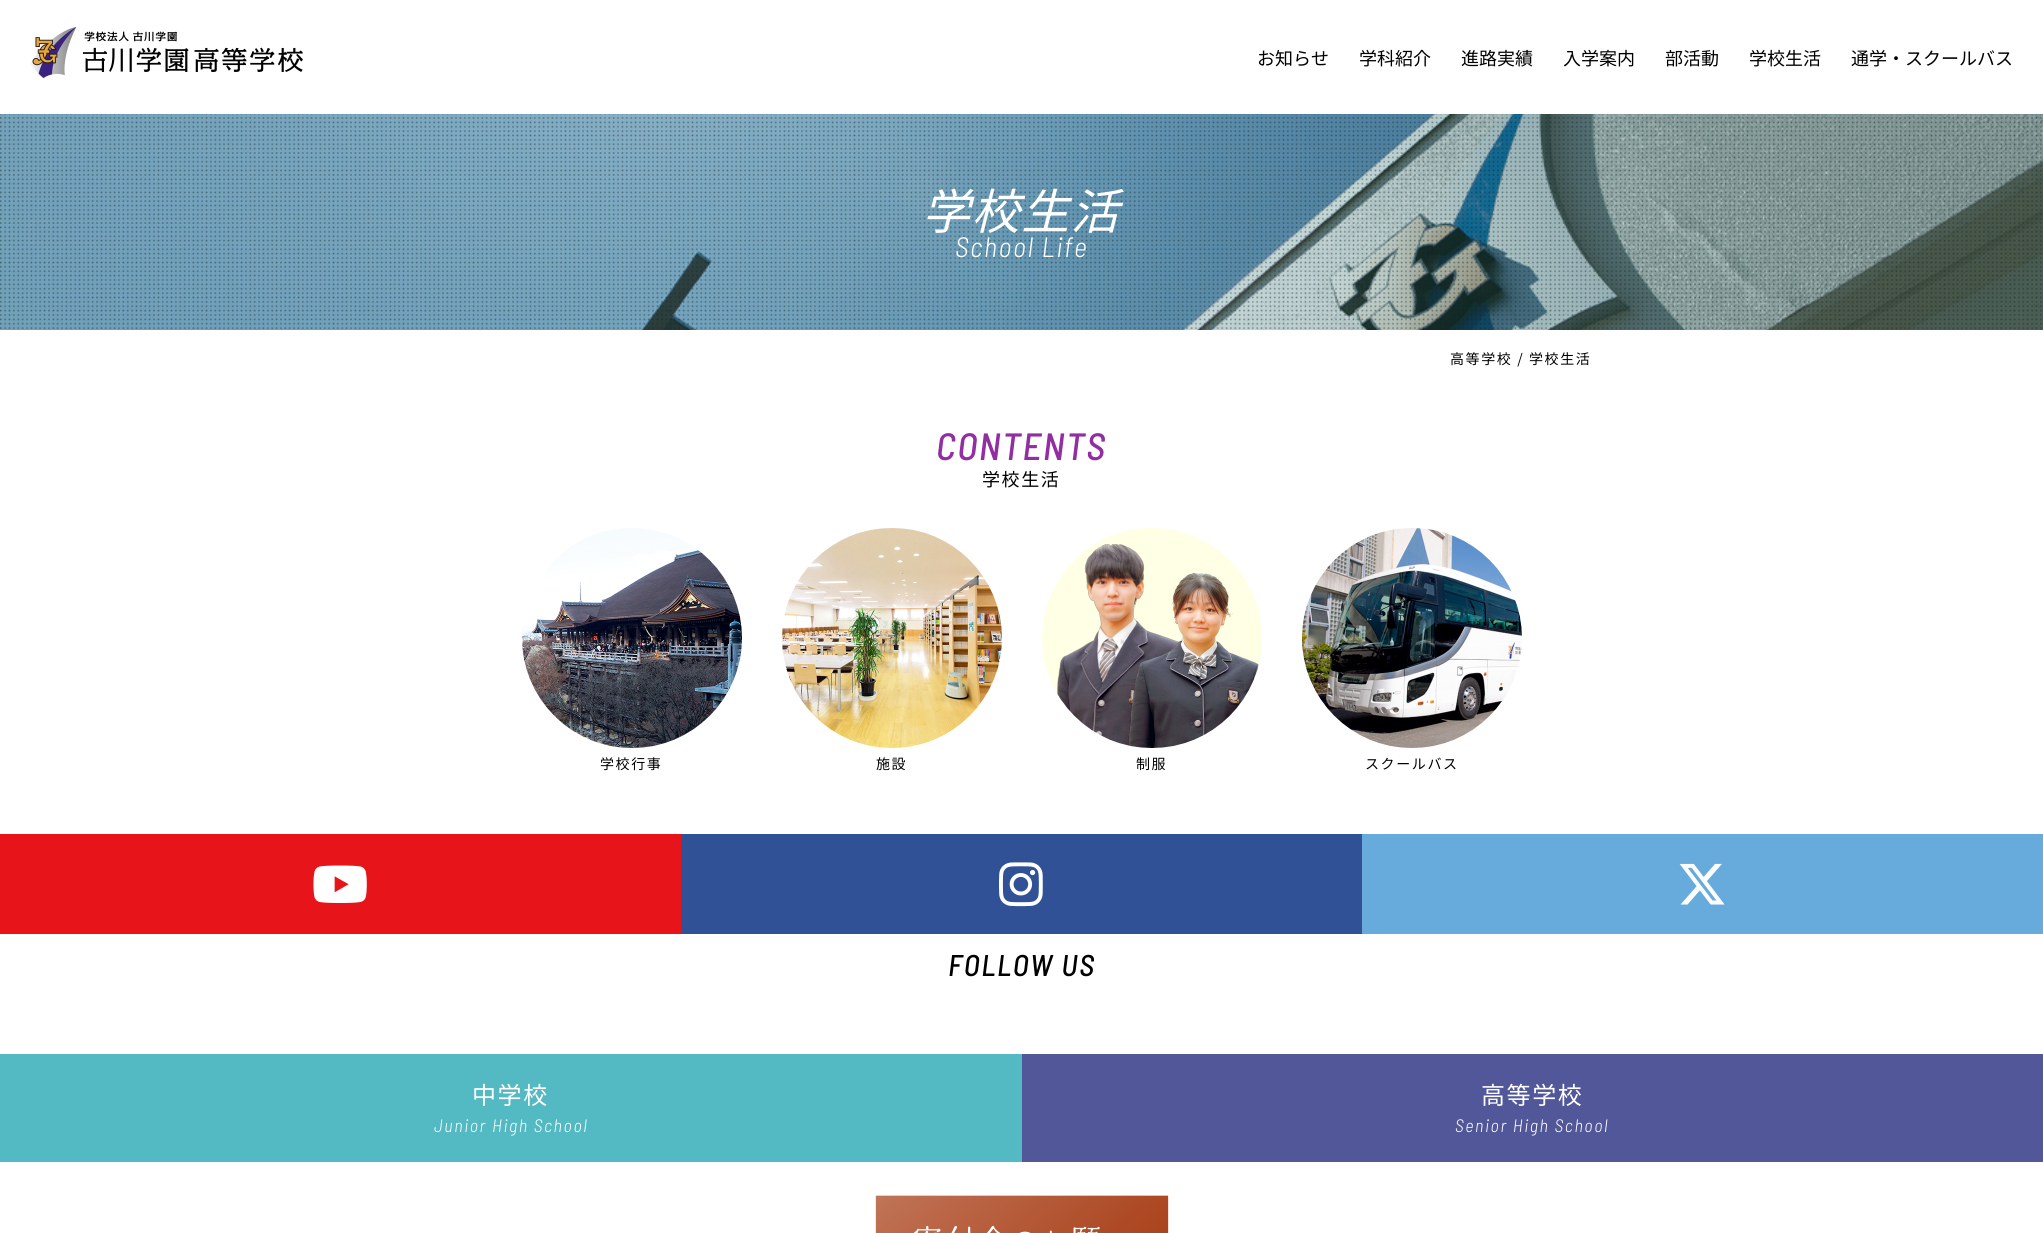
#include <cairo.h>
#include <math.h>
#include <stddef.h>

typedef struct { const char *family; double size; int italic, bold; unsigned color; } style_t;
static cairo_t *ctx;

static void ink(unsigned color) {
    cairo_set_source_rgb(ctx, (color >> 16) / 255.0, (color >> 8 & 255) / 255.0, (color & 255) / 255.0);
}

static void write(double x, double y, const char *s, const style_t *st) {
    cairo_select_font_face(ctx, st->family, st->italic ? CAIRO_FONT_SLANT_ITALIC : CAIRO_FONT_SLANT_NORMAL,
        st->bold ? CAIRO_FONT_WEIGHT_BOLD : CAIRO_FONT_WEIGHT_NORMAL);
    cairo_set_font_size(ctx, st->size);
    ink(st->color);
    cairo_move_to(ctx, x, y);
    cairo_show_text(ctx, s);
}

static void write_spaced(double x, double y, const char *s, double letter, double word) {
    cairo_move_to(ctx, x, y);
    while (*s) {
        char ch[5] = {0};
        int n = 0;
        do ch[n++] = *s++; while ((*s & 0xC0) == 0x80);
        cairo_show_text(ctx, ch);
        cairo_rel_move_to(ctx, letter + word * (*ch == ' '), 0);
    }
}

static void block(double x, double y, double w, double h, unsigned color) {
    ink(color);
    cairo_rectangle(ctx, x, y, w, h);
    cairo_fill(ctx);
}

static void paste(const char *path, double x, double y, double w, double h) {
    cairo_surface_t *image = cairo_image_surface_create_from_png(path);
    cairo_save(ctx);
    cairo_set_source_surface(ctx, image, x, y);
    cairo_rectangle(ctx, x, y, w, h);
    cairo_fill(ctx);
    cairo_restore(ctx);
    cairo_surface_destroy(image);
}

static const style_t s1 = {"Noto Sans JP", 18, 0, 0, 0x000000};

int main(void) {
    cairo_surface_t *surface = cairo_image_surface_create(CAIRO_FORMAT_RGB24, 2043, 1233);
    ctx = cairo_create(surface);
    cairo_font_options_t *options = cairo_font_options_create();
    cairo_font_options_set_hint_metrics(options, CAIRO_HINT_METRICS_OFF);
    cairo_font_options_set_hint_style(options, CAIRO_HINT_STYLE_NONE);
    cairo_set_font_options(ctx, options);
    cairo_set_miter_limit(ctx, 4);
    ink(0xffffff);
    cairo_paint(ctx);
    paste("pic1.png", 30, 27, 273, 51);
    write(1257, 65, "お知らせ", &s1);
    write(1359, 65, "学科紹介", &s1);
    write(1461, 65, "進路実績", &s1);
    write(1563, 65, "入学案内", &s1);
    write(1665, 65, "部活動", &s1);
    write(1749, 65, "学校生活", &s1);
    write(1851, 65, "通学・スクールバス", &s1);
    paste("pic2.png", 0, 114, 2043, 216);
    cairo_select_font_face(ctx, "Noto Sans JP", CAIRO_FONT_SLANT_ITALIC, CAIRO_FONT_WEIGHT_NORMAL);
    cairo_set_font_size(ctx, 48);
    ink(0xffffff);
    write_spaced(922, 229, "学校生活", 1.6, 0);
    cairo_select_font_face(ctx, "Barlow Semi Condensed Light", CAIRO_FONT_SLANT_ITALIC, CAIRO_FONT_WEIGHT_NORMAL);
    cairo_set_font_size(ctx, 28);
    write_spaced(955, 257, "School Life", 1.6, 0);
    cairo_select_font_face(ctx, "Noto Sans JP", CAIRO_FONT_SLANT_NORMAL, CAIRO_FONT_WEIGHT_NORMAL);
    cairo_set_font_size(ctx, 14);
    ink(0x000000);
    write_spaced(1450, 364, "高等学校 / 学校生活", 1.6, 0);
    cairo_select_font_face(ctx, "Barlow Semi Condensed Medium", CAIRO_FONT_SLANT_ITALIC, CAIRO_FONT_WEIGHT_NORMAL);
    cairo_set_font_size(ctx, 38);
    ink(0x902ea2);
    write_spaced(936, 460, "CONTENTS", 1.6, 0);
    cairo_select_font_face(ctx, "Noto Sans JP", CAIRO_FONT_SLANT_NORMAL, CAIRO_FONT_WEIGHT_NORMAL);
    cairo_set_font_size(ctx, 18);
    ink(0x000000);
    write_spaced(982, 486, "学校生活", 1.6, 0);
    paste("pic3.png", 522, 528, 220, 220);
    cairo_set_font_size(ctx, 14);
    write_spaced(600, 769, "学校行事", 1.6, 0);
    paste("pic4.png", 782, 528, 220, 220);
    write_spaced(876, 769, "施設", 1.6, 0);
    paste("pic5.png", 1042, 528, 220, 220);
    write_spaced(1136, 769, "制服", 1.6, 0);
    paste("pic6.png", 1302, 528, 220, 220);
    write_spaced(1365, 769, "スクールバス", 1.6, 0);
    block(0, 834, 681, 100, 0xe7141a);
    paste("pic7.png", 313, 865, 54, 38);
    block(681, 834, 681, 100, 0x305196);
    paste("pic8.png", 999, 862, 44, 45);
    block(1362, 834, 681, 100, 0x67abdd);
    paste("pic9.png", 1679, 863, 46, 42);
    cairo_select_font_face(ctx, "Barlow Semi Condensed Medium", CAIRO_FONT_SLANT_ITALIC, CAIRO_FONT_WEIGHT_NORMAL);
    cairo_set_font_size(ctx, 30);
    ink(0x000000);
    write_spaced(948, 976, "FOLLOW US", 1.6, 0);
    block(0, 1054, 1022, 108, 0x53b9c2);
    cairo_select_font_face(ctx, "Noto Sans JP", CAIRO_FONT_SLANT_NORMAL, CAIRO_FONT_WEIGHT_NORMAL);
    cairo_set_font_size(ctx, 24);
    ink(0xffffff);
    write_spaced(472, 1104, "中学校", 1.6, 0);
    cairo_select_font_face(ctx, "Barlow Semi Condensed Light", CAIRO_FONT_SLANT_ITALIC, CAIRO_FONT_WEIGHT_NORMAL);
    cairo_set_font_size(ctx, 18);
    write_spaced(434, 1132, "Junior High School", 1.6, 0);
    block(1022, 1054, 1021, 108, 0x515799);
    cairo_select_font_face(ctx, "Noto Sans JP", CAIRO_FONT_SLANT_NORMAL, CAIRO_FONT_WEIGHT_NORMAL);
    cairo_set_font_size(ctx, 24);
    ink(0xffffff);
    write_spaced(1481, 1104, "高等学校", 1.6, 0);
    cairo_select_font_face(ctx, "Barlow Semi Condensed Light", CAIRO_FONT_SLANT_ITALIC, CAIRO_FONT_WEIGHT_NORMAL);
    cairo_set_font_size(ctx, 18);
    write_spaced(1455, 1132, "Senior High School", 1.6, 0);
    paste("pic10.png", 875, 1195, 294, 38);
    cairo_surface_write_to_png(surface, "screenshot.png");
    cairo_font_options_destroy(options);
    cairo_destroy(ctx);
    cairo_surface_destroy(surface);
    return 0;
}
